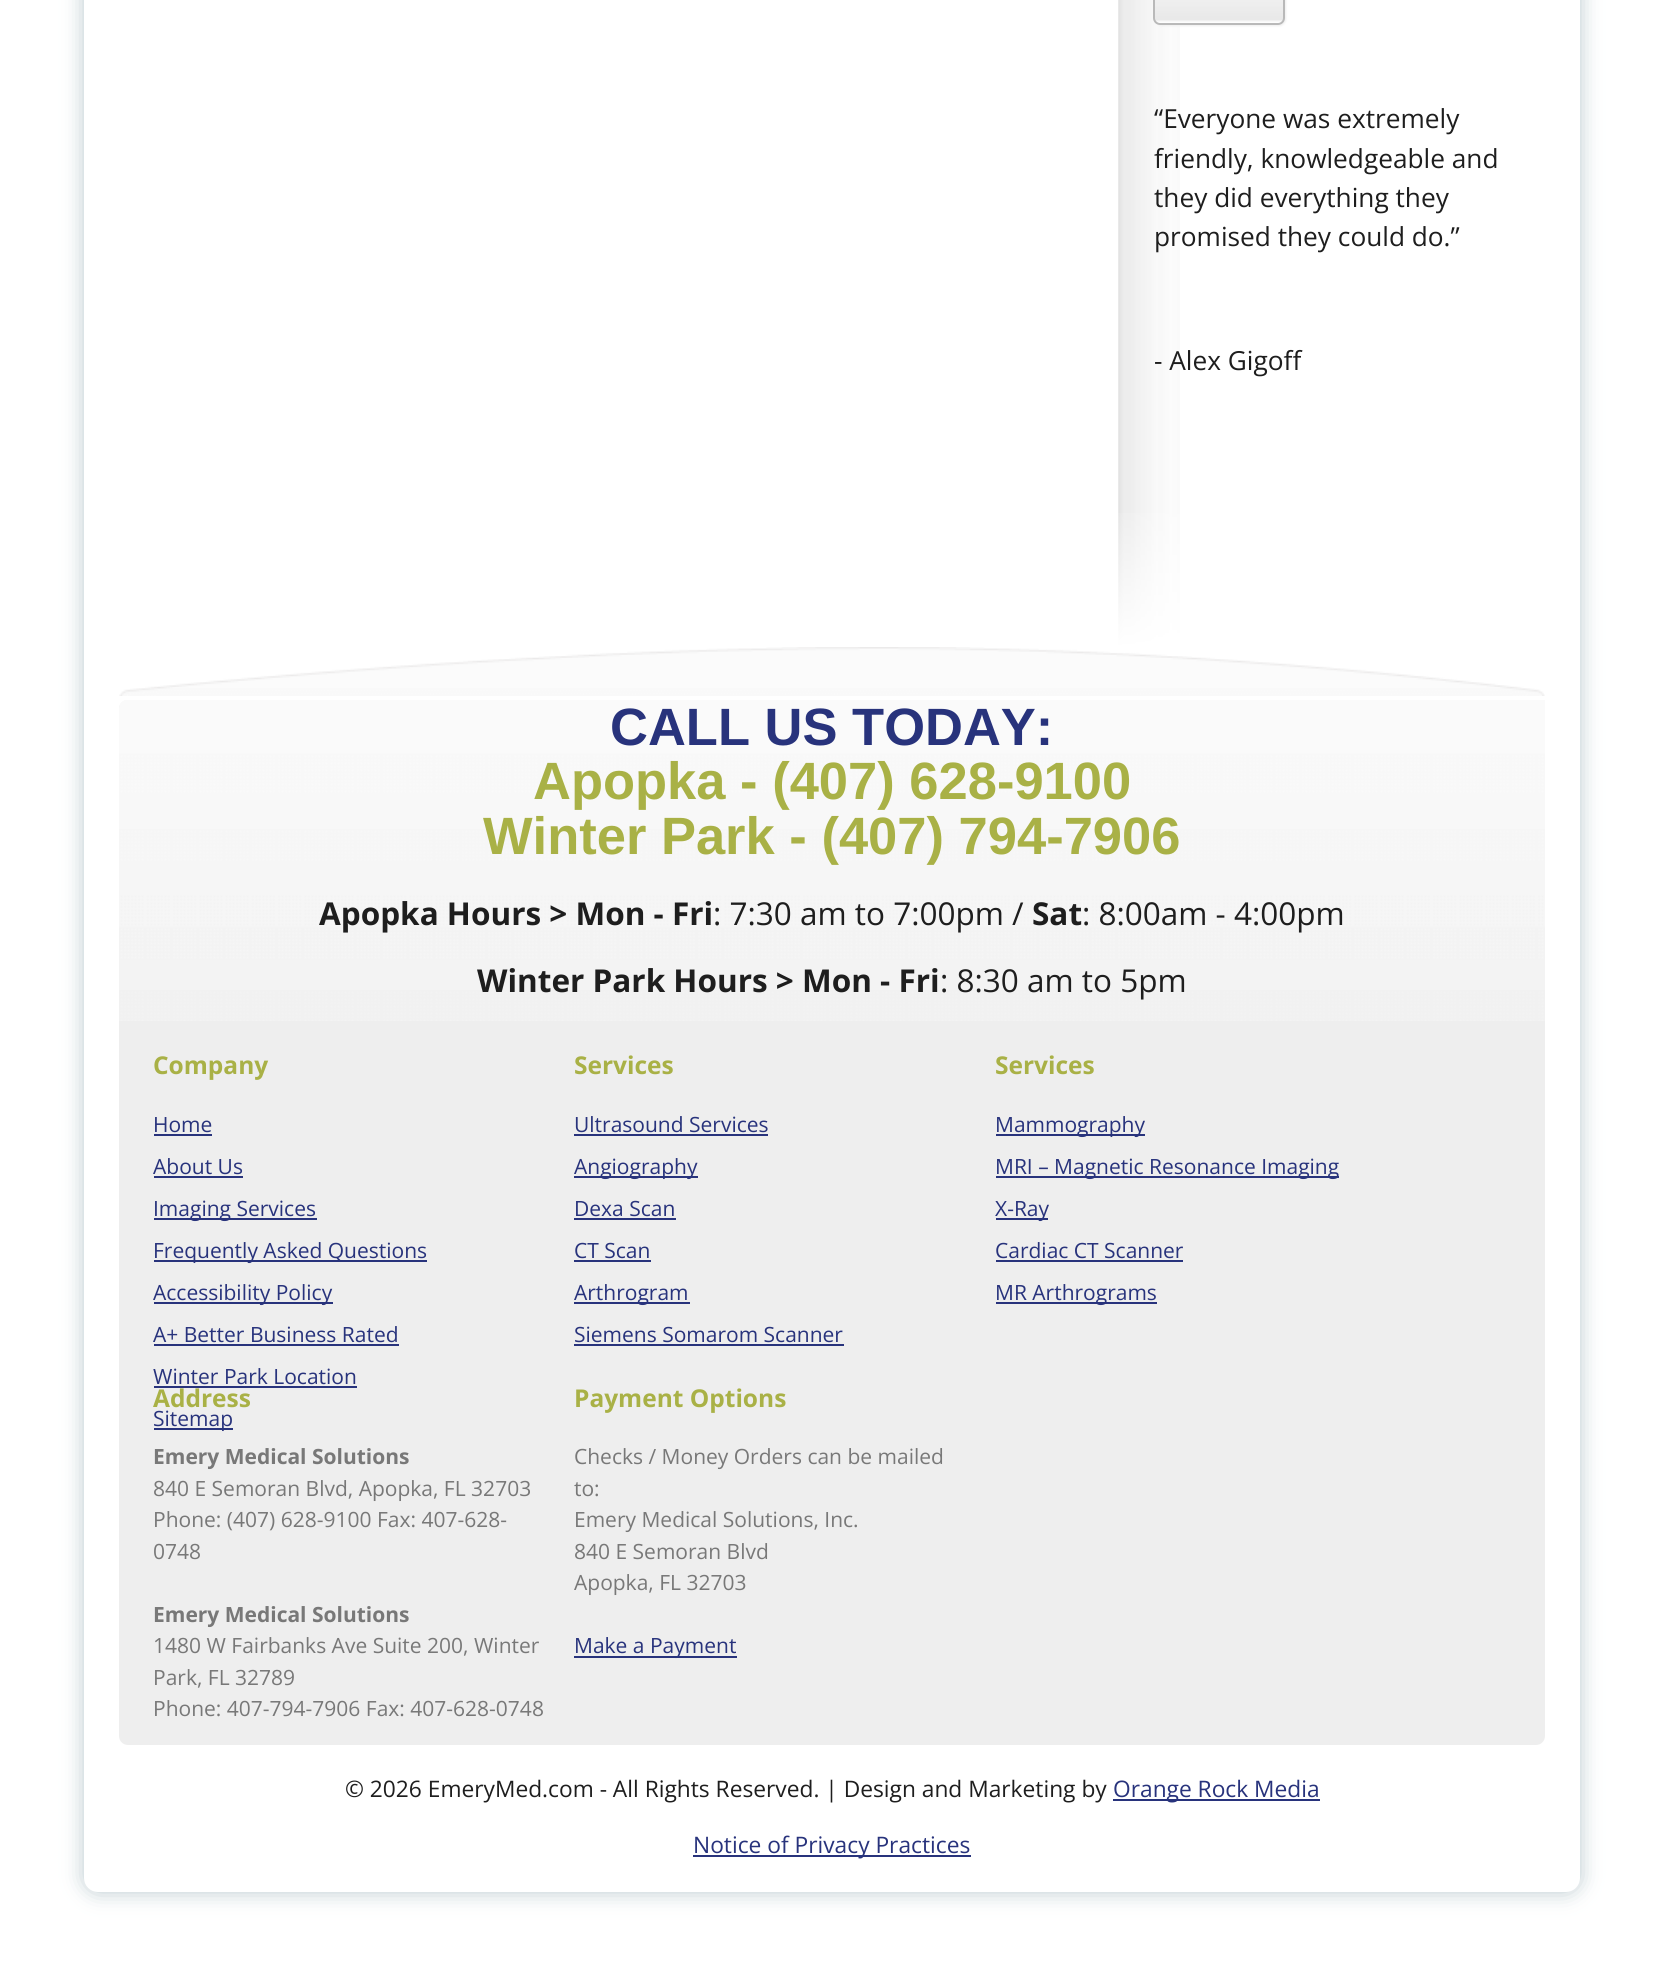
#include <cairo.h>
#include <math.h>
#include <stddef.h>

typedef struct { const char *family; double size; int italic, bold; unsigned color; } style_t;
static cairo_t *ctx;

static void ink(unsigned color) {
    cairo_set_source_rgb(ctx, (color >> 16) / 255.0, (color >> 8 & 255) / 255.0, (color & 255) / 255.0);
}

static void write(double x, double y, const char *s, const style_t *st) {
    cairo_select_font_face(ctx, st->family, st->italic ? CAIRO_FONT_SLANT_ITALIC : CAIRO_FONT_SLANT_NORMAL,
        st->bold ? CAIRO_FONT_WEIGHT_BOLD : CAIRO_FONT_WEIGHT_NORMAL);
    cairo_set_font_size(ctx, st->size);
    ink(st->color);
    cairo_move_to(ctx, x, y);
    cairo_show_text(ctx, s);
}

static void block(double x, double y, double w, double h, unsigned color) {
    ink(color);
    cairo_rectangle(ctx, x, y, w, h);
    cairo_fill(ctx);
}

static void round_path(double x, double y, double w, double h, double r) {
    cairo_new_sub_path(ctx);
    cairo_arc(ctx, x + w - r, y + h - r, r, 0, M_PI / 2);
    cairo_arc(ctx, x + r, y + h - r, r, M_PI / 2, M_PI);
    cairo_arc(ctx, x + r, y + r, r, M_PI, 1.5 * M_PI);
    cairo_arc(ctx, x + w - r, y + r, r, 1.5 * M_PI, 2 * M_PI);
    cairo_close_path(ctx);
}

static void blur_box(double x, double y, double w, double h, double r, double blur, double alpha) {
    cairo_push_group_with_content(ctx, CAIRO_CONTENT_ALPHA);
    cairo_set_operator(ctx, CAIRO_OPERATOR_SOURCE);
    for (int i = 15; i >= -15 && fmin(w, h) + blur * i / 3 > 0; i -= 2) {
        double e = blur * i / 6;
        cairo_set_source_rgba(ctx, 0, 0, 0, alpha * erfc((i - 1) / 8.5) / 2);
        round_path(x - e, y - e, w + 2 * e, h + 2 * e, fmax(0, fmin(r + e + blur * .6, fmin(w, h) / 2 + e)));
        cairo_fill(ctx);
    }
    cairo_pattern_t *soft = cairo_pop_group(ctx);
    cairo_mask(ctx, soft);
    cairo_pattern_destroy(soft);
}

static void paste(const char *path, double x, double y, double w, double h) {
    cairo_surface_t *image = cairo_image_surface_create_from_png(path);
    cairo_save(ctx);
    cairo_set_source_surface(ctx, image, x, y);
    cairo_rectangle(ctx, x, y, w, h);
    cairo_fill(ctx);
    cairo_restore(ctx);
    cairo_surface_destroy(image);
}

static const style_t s1 = {"Open Sans", 26.25, 0, 0, 0x1e1e1e};
static const style_t s2 = {"Liberation Sans", 52.5, 0, 1, 0x28337c};
static const style_t s3 = {"Liberation Sans", 52.5, 0, 1, 0xa9b146};
static const style_t s4 = {"Open Sans", 31.5, 0, 1, 0x1e1e1e};
static const style_t s5 = {"Open Sans", 31.5, 0, 0, 0x1e1e1e};
static const style_t s6 = {"Open Sans", 24.5, 0, 1, 0xa9b146};
static const style_t s7 = {"Open Sans", 21, 0, 0, 0x28337c};
static const style_t s8 = {"Open Sans", 21, 0, 1, 0x787878};
static const style_t s9 = {"Open Sans", 21, 0, 0, 0x787878};
static const style_t s10 = {"Open Sans", 22.75, 0, 0, 0x1e1e1e};
static const style_t s11 = {"Open Sans", 22.75, 0, 0, 0x28337c};

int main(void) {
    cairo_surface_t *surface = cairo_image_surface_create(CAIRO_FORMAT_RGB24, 1663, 1978);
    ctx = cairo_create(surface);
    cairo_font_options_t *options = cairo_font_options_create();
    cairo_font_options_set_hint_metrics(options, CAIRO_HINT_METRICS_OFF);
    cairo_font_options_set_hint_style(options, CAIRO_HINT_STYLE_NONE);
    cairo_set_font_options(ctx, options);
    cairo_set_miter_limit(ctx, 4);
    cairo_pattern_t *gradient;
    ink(0xffffff);
    cairo_paint(ctx);
    ink(0xbacacf);
    blur_box(84, -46, 1496, 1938, 14, 10.5, 1);
    ink(0xffffff);
    round_path(84, -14, 1496, 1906, 14);
    cairo_fill(ctx);
    paste("pic1.png", 1118, 0, 62, 647);
    ink(0xeeeeee);
    blur_box(1155, -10, 131, 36, 7, 1, 1);
    ink(0xfdfdfd);
    round_path(1153, -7, 132, 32, 7);
    cairo_fill(ctx);
    paste("pic2.png", 1153, 0, 132, 22);
    round_path(1154, -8, 130, 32, 6);
    ink(0xb9b9b9);
    cairo_stroke(ctx);
    write(1154, 128, "“Everyone was extremely", &s1);
    write(1154, 168, "friendly, knowledgeable and", &s1);
    write(1154, 207, "they did everything they", &s1);
    write(1154, 246, "promised they could do.”", &s1);
    write(1154, 370, "- Alex Gigoff", &s1);
    gradient = cairo_pattern_create_linear(1297, 499, 1297, 648);
    cairo_pattern_add_color_stop_rgba(gradient, 0, 1, 1, 1, 0);
    cairo_pattern_add_color_stop_rgba(gradient, 1, 1, 1, 1, 1);
    cairo_set_source(ctx, gradient);
    cairo_pattern_destroy(gradient);
    cairo_rectangle(ctx, 1118, 513, 62, 134);
    cairo_fill(ctx);
    paste("pic3.png", 119, 647, 1426, 49);
    ink(0xeeeeee);
    cairo_new_path(ctx);
    cairo_move_to(ctx, 128, 700);
    cairo_line_to(ctx, 1545, 700);
    cairo_line_to(ctx, 1545, 1736);
    cairo_curve_to(ctx, 1545, 1741, 1541, 1745, 1536, 1745);
    cairo_line_to(ctx, 128, 1745);
    cairo_curve_to(ctx, 123, 1745, 119, 1741, 119, 1736);
    cairo_line_to(ctx, 119, 709);
    cairo_curve_to(ctx, 119, 704, 123, 700, 128, 700);
    cairo_close_path(ctx);
    cairo_fill(ctx);
    paste("pic4.png", 119, 700, 1426, 321);
    write(610, 745, "CALL US TODAY:", &s2);
    write(533, 799, "Apopka - (407) 628-9100", &s3);
    write(483, 854, "Winter Park - (407) 794-7906", &s3);
    write(319, 925, "Apopka Hours > Mon - Fri", &s4);
    write(713, 925, ": 7:30 am to 7:00pm /", &s5);
    write(1032, 925, "Sat", &s4);
    write(1082, 925, ": 8:00am - 4:00pm", &s5);
    write(477, 992, "Winter Park Hours > Mon - Fri", &s4);
    write(940, 992, ": 8:30 am to 5pm", &s5);
    write(153, 1074, "Company", &s6);
    write(153, 1132, "Home", &s7);
    block(154, 1134, 58, 2, 0x28337c);
    write(153, 1174, "About Us", &s7);
    block(154, 1176, 89, 2, 0x28337c);
    block(154, 1218, 163, 2, 0x28337c);
    write(153, 1216, "Imaging Services", &s7);
    block(154, 1260, 273, 2, 0x28337c);
    write(153, 1258, "Frequently Asked Questions", &s7);
    block(154, 1302, 179, 2, 0x28337c);
    write(153, 1300, "Accessibility Policy", &s7);
    write(153, 1342, "A+ Better Business Rated", &s7);
    block(154, 1344, 245, 2, 0x28337c);
    write(153, 1384, "Winter Park Location", &s7);
    block(154, 1386, 203, 2, 0x28337c);
    block(154, 1428, 79, 2, 0x28337c);
    write(153, 1426, "Sitemap", &s7);
    write(574, 1074, "Services", &s6);
    write(574, 1132, "Ultrasound Services", &s7);
    block(574, 1134, 194, 2, 0x28337c);
    block(574, 1176, 124, 2, 0x28337c);
    write(574, 1174, "Angiography", &s7);
    write(574, 1216, "Dexa Scan", &s7);
    block(574, 1218, 102, 2, 0x28337c);
    write(574, 1258, "CT Scan", &s7);
    block(574, 1260, 77, 2, 0x28337c);
    block(574, 1302, 116, 2, 0x28337c);
    write(574, 1300, "Arthrogram", &s7);
    write(574, 1342, "Siemens Somarom Scanner", &s7);
    block(574, 1344, 270, 2, 0x28337c);
    write(995, 1074, "Services", &s6);
    block(996, 1134, 149, 2, 0x28337c);
    write(995, 1132, "Mammography", &s7);
    block(996, 1176, 343, 2, 0x28337c);
    write(995, 1174, "MRI – Magnetic Resonance Imaging", &s7);
    block(996, 1218, 52, 2, 0x28337c);
    write(995, 1216, "X-Ray", &s7);
    write(995, 1258, "Cardiac CT Scanner", &s7);
    block(996, 1260, 187, 2, 0x28337c);
    block(996, 1302, 161, 2, 0x28337c);
    write(995, 1300, "MR Arthrograms", &s7);
    write(153, 1407, "Address", &s6);
    write(153, 1464, "Emery Medical Solutions", &s8);
    write(153, 1496, "840 E Semoran Blvd, Apopka, FL 32703", &s9);
    write(153, 1527, "Phone: (407) 628-9100 Fax: 407-628-", &s9);
    write(153, 1559, "0748", &s9);
    write(153, 1622, "Emery Medical Solutions", &s8);
    write(153, 1653, "1480 W Fairbanks Ave Suite 200, Winter", &s9);
    write(153, 1685, "Park, FL 32789", &s9);
    write(153, 1716, "Phone: 407-794-7906 Fax: 407-628-0748", &s9);
    write(574, 1407, "Payment Options", &s6);
    write(574, 1464, "Checks / Money Orders can be mailed", &s9);
    write(574, 1496, "to:", &s9);
    write(574, 1527, "Emery Medical Solutions, Inc.", &s9);
    write(574, 1559, "840 E Semoran Blvd", &s9);
    write(574, 1590, "Apopka, FL 32703", &s9);
    block(574, 1656, 163, 2, 0x28337c);
    write(574, 1653, "Make a Payment", &s7);
    write(345, 1797, "© 2026 EmeryMed.com - All Rights Reserved. | Design and Marketing by", &s10);
    block(1113, 1799, 207, 2, 0x28337c);
    write(1113, 1797, "Orange Rock Media", &s11);
    block(693, 1855, 278, 2, 0x28337c);
    write(693, 1853, "Notice of Privacy Practices", &s11);
    cairo_surface_write_to_png(surface, "screenshot.png");
    cairo_font_options_destroy(options);
    cairo_destroy(ctx);
    cairo_surface_destroy(surface);
    return 0;
}
